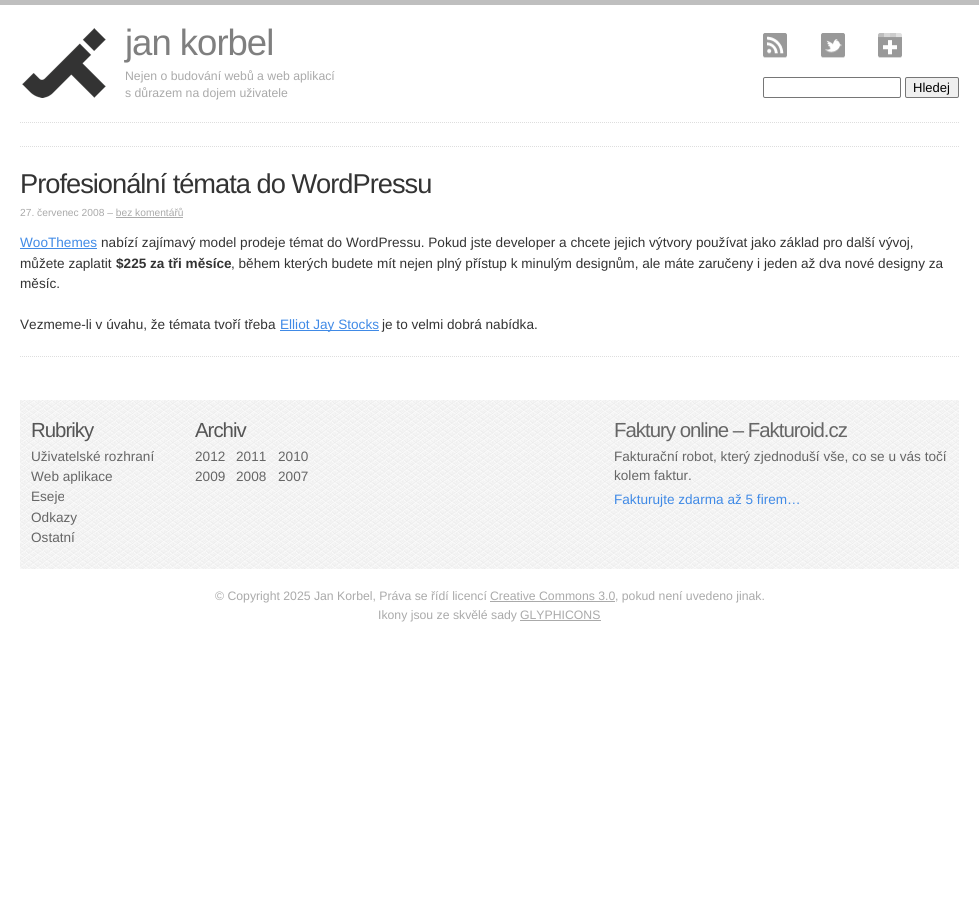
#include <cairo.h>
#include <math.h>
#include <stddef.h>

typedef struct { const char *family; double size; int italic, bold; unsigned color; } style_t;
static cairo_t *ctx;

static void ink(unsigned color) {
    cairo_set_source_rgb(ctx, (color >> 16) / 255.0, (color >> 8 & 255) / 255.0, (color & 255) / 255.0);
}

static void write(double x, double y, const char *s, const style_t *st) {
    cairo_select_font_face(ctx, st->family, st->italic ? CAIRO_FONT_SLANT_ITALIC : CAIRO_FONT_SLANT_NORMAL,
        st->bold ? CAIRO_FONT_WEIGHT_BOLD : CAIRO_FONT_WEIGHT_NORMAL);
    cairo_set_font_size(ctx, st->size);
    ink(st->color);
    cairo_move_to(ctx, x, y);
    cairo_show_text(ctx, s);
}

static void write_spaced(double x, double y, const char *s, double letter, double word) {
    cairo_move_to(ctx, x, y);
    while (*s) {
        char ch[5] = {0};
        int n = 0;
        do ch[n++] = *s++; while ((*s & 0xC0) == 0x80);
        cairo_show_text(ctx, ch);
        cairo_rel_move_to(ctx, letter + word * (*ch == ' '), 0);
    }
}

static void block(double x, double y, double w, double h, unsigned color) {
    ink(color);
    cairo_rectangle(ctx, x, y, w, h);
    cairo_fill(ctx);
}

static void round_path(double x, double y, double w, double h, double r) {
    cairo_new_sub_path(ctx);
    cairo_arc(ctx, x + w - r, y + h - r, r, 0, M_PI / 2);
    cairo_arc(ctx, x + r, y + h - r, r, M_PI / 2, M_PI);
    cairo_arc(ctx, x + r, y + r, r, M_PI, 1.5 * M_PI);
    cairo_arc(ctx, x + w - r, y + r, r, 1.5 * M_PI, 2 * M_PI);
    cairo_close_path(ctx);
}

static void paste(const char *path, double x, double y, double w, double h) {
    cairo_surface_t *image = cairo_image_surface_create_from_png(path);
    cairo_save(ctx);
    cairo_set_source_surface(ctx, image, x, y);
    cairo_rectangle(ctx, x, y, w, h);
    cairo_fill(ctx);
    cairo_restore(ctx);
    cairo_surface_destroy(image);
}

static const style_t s1 = {"Liberation Sans", 12.25, 0, 0, 0xaaaaaa};
static const style_t s2 = {"Liberation Sans", 13, 0, 0, 0x000000};
static const style_t s3 = {"Liberation Sans", 10.25, 0, 0, 0xaaaaaa};
static const style_t s4 = {"Liberation Sans", 13.6, 0, 0, 0x408ae6};
static const style_t s5 = {"Liberation Sans", 13.6, 0, 0, 0x333333};
static const style_t s6 = {"Liberation Sans", 13.6, 0, 1, 0x333333};
static const style_t s7 = {"Liberation Sans", 13.6, 0, 0, 0x666666};

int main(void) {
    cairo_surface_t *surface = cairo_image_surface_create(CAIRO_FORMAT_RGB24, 979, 914);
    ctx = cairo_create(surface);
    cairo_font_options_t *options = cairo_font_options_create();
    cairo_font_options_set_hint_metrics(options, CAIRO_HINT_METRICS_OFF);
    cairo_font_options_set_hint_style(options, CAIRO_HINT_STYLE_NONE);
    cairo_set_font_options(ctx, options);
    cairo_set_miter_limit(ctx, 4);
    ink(0xffffff);
    cairo_paint(ctx);
    block(0, 0, 979, 5, 0xbfbfbf);
    cairo_new_path(ctx);
    cairo_move_to(ctx, 20, 122.5);
    cairo_line_to(ctx, 959, 122.5);
    ink(0xdedede);
    cairo_set_line_width(ctx, 1);
    cairo_set_dash(ctx, (double[]){1, 1}, 2, 0);
    cairo_stroke(ctx);
    paste("pic1.png", 22, 28, 84, 70);
    cairo_select_font_face(ctx, "Liberation Sans", CAIRO_FONT_SLANT_NORMAL, CAIRO_FONT_WEIGHT_NORMAL);
    cairo_set_font_size(ctx, 36.5);
    ink(0x7f7f7f);
    write_spaced(125, 55, "jan korbel", -1, 0);
    write(125, 80, "Nejen o budování webů a web aplikací", &s1);
    write(125, 97, "s důrazem na dojem uživatele", &s1);
    paste("pic2.png", 763, 33, 24, 25);
    paste("pic3.png", 821, 33, 24, 25);
    paste("pic4.png", 878, 33, 24, 25);
    round_path(763.5, 77.5, 137, 20, 1.5);
    ink(0x767676);
    cairo_set_dash(ctx, NULL, 0, 0);
    cairo_stroke(ctx);
    ink(0xefefef);
    round_path(905.5, 77.5, 53, 20, 1.5);
    cairo_fill_preserve(ctx);
    ink(0x767676);
    cairo_stroke(ctx);
    write(913, 92, "Hledej", &s2);
    cairo_new_path(ctx);
    cairo_move_to(ctx, 20, 146.5);
    cairo_line_to(ctx, 959, 146.5);
    ink(0xdedede);
    cairo_set_dash(ctx, (double[]){1, 1}, 2, 0);
    cairo_stroke(ctx);
    cairo_new_path(ctx);
    cairo_move_to(ctx, 20, 356.5);
    cairo_line_to(ctx, 959, 356.5);
    cairo_stroke(ctx);
    cairo_set_font_size(ctx, 27.25);
    ink(0x333333);
    write_spaced(20, 193, "Profesionální témata do WordPressu", -1, 0);
    write(20, 216, "27. červenec 2008 – bez komentářů", &s3);
    block(116, 217, 67, 1, 0xaaaaaa);
    write(20, 247, "WooThemes", &s4);
    block(20, 248, 77, 1, 0x408ae6);
    write(101, 247, "nabízí zajímavý model prodeje témat do WordPressu. Pokud jste developer a chcete jejich výtvory používat jako základ pro další vývoj,", &s5);
    write(20, 268, "můžete zaplatit", &s5);
    write(116, 268, "$225 za tři měsíce", &s6);
    write(231, 268, ", během kterých budete mít nejen plný přístup k minulým designům, ale máte zaručeny i jeden až dva nové designy za", &s5);
    write(20, 288, "měsíc.", &s5);
    write(20, 329, "Vezmeme-li v úvahu, že témata tvoří třeba", &s5);
    block(280, 330, 99, 1, 0x408ae6);
    write(280, 329, "Elliot Jay Stocks", &s4);
    write(382, 329, "je to velmi dobrá nabídka.", &s5);
    paste("pic5.png", 20, 400, 939, 169);
    cairo_set_font_size(ctx, 20.4);
    ink(0x555555);
    write_spaced(31, 437, "Rubriky", -1, 0);
    write(31, 461, "Uživatelské rozhraní", &s7);
    write(31, 481, "Web aplikace", &s7);
    write(31, 501, "Eseje", &s7);
    write(31, 522, "Odkazy", &s7);
    write(31, 542, "Ostatní", &s7);
    cairo_set_font_size(ctx, 20.4);
    ink(0x555555);
    write_spaced(195, 437, "Archiv", -1, 0);
    write(195, 461, "2012", &s7);
    write(236, 461, "2011", &s7);
    write(278, 461, "2010", &s7);
    write(195, 481, "2009", &s7);
    write(236, 481, "2008", &s7);
    write(278, 481, "2007", &s7);
    cairo_set_font_size(ctx, 20.4);
    write_spaced(614, 437, "Faktury online – Fakturoid.cz", -1, 0);
    write(614, 461, "Fakturační robot, který zjednoduší vše, co se u vás točí", &s7);
    write(614, 480, "kolem faktur.", &s7);
    write(614, 504, "Fakturujte zdarma až 5 firem…", &s4);
    write(215, 600, "© Copyright 2025 Jan Korbel, Práva se řídí licencí", &s1);
    write(490, 600, "Creative Commons 3.0", &s1);
    block(490, 601, 125, 1, 0xaaaaaa);
    write(615, 600, ", pokud není uvedeno jinak.", &s1);
    write(378, 619, "Ikony jsou ze skvělé sady", &s1);
    write(520, 619, "GLYPHICONS", &s1);
    block(520, 620, 81, 1, 0xaaaaaa);
    cairo_surface_write_to_png(surface, "screenshot.png");
    cairo_font_options_destroy(options);
    cairo_destroy(ctx);
    cairo_surface_destroy(surface);
    return 0;
}
